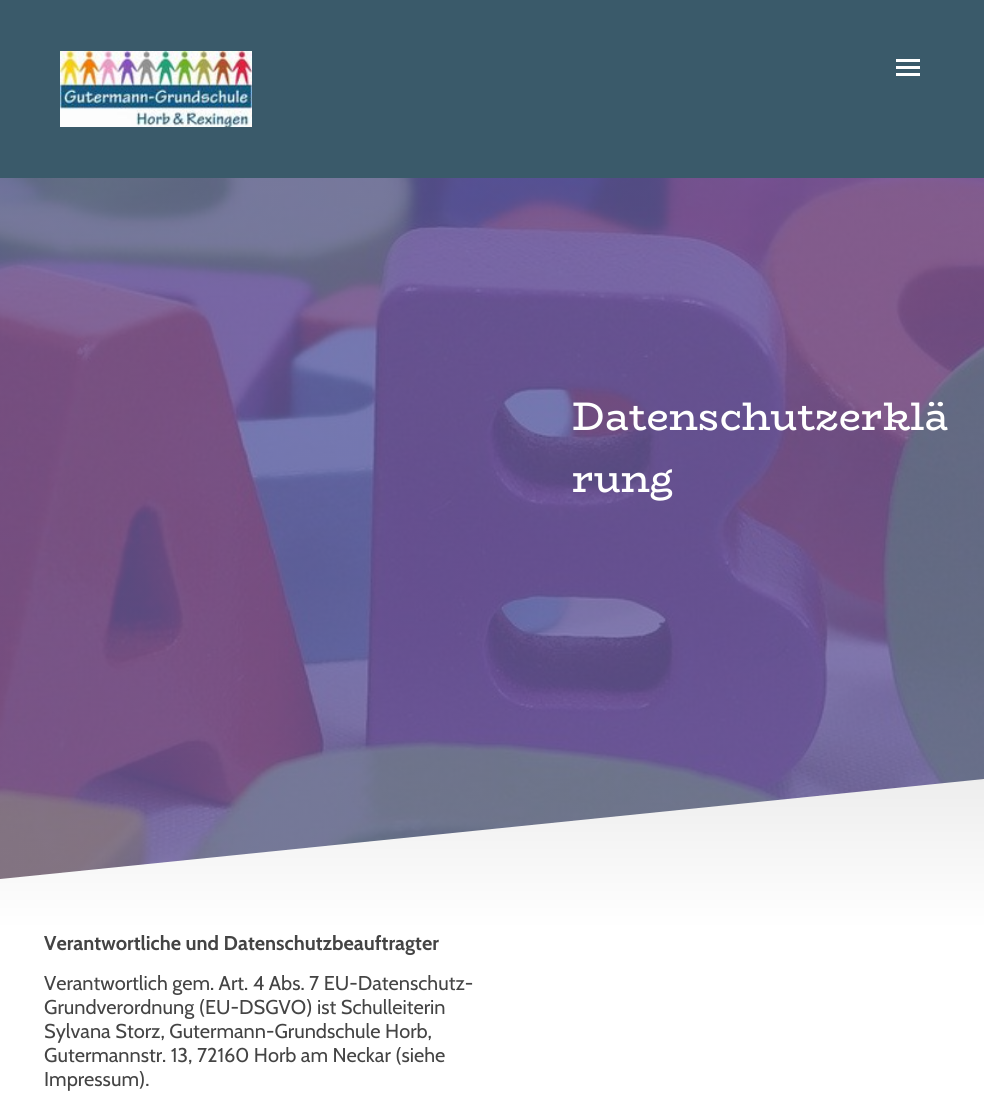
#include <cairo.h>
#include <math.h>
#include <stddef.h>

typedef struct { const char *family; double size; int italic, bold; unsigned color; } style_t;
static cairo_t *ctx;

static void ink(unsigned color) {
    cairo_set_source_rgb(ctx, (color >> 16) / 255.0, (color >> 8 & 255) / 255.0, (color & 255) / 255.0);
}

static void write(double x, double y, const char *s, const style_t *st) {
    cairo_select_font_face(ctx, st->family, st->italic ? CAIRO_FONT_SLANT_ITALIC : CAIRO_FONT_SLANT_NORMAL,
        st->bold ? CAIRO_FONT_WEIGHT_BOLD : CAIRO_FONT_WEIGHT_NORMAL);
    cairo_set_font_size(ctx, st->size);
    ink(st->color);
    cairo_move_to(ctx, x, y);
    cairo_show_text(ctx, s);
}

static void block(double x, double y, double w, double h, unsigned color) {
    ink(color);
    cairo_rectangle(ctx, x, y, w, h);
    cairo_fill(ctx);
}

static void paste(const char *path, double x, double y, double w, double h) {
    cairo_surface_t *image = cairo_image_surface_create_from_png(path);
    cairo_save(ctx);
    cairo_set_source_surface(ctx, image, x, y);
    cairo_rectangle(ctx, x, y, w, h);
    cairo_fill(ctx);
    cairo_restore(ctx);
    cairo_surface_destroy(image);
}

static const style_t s1 = {"BioRhyme", 40, 0, 0, 0xffffff};
static const style_t s2 = {"Cabin", 20, 0, 1, 0x444444};
static const style_t s3 = {"Cabin", 20, 0, 0, 0x444444};

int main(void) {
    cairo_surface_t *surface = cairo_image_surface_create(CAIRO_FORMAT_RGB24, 984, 1107);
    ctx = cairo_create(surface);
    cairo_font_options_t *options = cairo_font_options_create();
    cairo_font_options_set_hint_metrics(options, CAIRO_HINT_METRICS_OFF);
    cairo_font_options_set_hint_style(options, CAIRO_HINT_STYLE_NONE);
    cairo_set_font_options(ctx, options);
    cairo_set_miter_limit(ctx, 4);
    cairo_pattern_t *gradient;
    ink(0x3a5a6a);
    cairo_paint(ctx);
    paste("pic1.png", 60, 51, 192, 76);
    block(896, 59, 24, 3, 0xffffff);
    block(896, 66, 24, 3, 0xffffff);
    block(896, 73, 24, 3, 0xffffff);
    paste("pic2.png", 0, 178, 984, 701);
    write(572, 430, "Datenschutzerklä", &s1);
    write(572, 492, "rung", &s1);
    cairo_new_path(ctx);
    cairo_move_to(ctx, 0, 879);
    cairo_line_to(ctx, 0, 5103);
    cairo_line_to(ctx, 984, 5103);
    cairo_line_to(ctx, 984, 779);
    cairo_close_path(ctx);
    cairo_fill(ctx);
    gradient = cairo_pattern_create_linear(492, 779, 492, 929);
    cairo_pattern_add_color_stop_rgba(gradient, 0, 0, 0, 0, 0.07);
    cairo_pattern_add_color_stop_rgba(gradient, 1, 0, 0, 0, 0);
    cairo_set_source(ctx, gradient);
    cairo_pattern_destroy(gradient);
    cairo_new_path(ctx);
    cairo_move_to(ctx, 0, 879);
    cairo_line_to(ctx, 0, 929);
    cairo_line_to(ctx, 984, 929);
    cairo_line_to(ctx, 984, 779);
    cairo_close_path(ctx);
    cairo_fill(ctx);
    write(44, 950, "Verantwortliche und Datenschutzbeauftragter", &s2);
    write(44, 990, "Verantwortlich gem. Art. 4 Abs. 7 EU-Datenschutz-", &s3);
    write(44, 1014, "Grundverordnung (EU-DSGVO) ist Schulleiterin", &s3);
    write(44, 1038, "Sylvana Storz, Gutermann-Grundschule Horb,", &s3);
    write(44, 1062, "Gutermannstr. 13, 72160 Horb am Neckar (siehe", &s3);
    write(44, 1086, "Impressum).", &s3);
    cairo_surface_write_to_png(surface, "screenshot.png");
    cairo_font_options_destroy(options);
    cairo_destroy(ctx);
    cairo_surface_destroy(surface);
    return 0;
}
